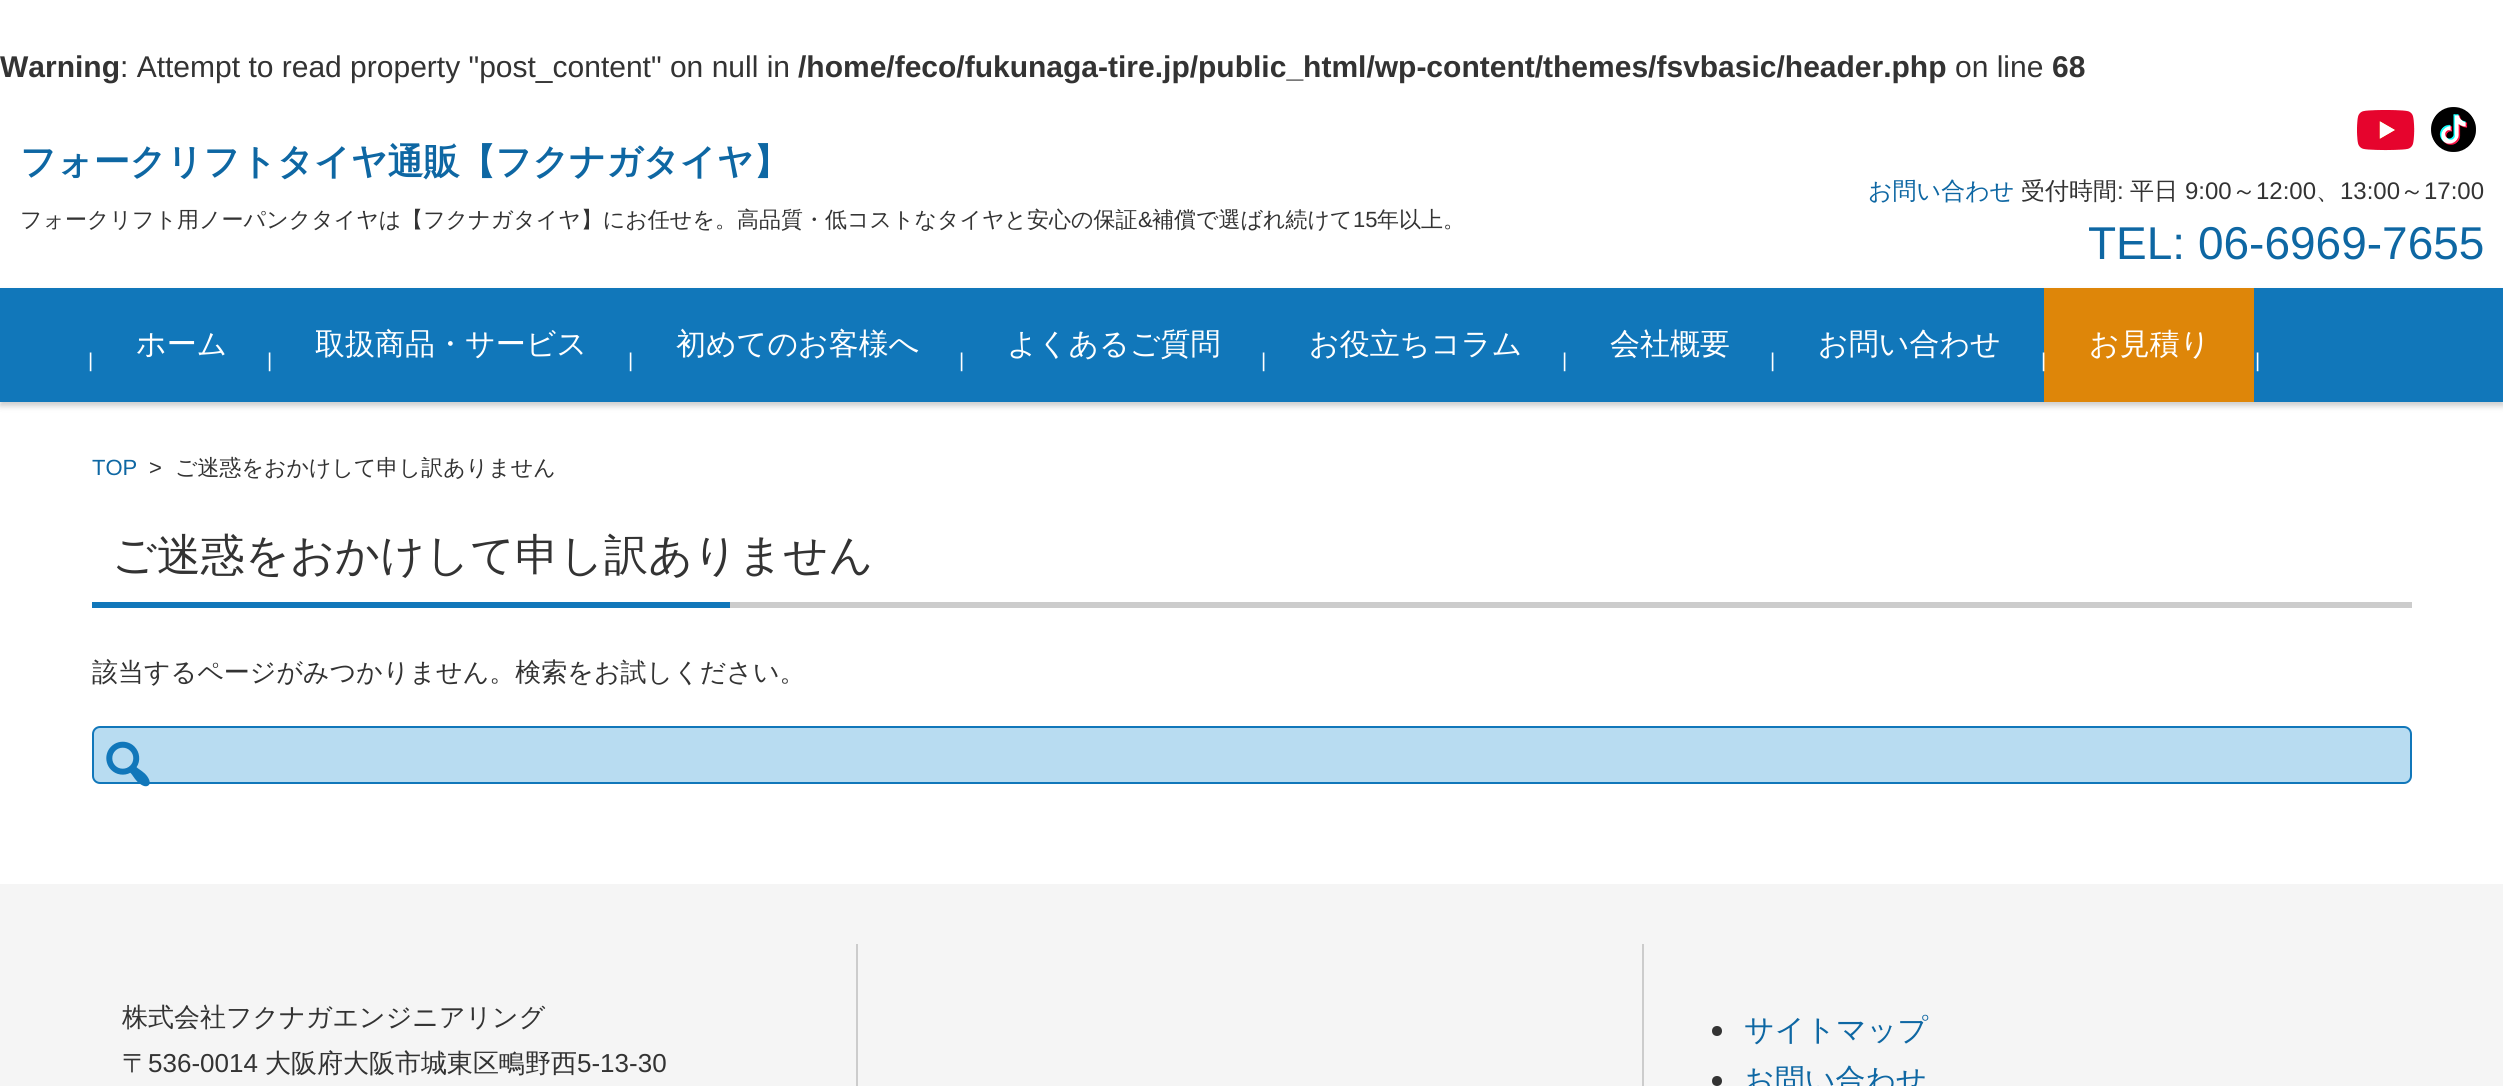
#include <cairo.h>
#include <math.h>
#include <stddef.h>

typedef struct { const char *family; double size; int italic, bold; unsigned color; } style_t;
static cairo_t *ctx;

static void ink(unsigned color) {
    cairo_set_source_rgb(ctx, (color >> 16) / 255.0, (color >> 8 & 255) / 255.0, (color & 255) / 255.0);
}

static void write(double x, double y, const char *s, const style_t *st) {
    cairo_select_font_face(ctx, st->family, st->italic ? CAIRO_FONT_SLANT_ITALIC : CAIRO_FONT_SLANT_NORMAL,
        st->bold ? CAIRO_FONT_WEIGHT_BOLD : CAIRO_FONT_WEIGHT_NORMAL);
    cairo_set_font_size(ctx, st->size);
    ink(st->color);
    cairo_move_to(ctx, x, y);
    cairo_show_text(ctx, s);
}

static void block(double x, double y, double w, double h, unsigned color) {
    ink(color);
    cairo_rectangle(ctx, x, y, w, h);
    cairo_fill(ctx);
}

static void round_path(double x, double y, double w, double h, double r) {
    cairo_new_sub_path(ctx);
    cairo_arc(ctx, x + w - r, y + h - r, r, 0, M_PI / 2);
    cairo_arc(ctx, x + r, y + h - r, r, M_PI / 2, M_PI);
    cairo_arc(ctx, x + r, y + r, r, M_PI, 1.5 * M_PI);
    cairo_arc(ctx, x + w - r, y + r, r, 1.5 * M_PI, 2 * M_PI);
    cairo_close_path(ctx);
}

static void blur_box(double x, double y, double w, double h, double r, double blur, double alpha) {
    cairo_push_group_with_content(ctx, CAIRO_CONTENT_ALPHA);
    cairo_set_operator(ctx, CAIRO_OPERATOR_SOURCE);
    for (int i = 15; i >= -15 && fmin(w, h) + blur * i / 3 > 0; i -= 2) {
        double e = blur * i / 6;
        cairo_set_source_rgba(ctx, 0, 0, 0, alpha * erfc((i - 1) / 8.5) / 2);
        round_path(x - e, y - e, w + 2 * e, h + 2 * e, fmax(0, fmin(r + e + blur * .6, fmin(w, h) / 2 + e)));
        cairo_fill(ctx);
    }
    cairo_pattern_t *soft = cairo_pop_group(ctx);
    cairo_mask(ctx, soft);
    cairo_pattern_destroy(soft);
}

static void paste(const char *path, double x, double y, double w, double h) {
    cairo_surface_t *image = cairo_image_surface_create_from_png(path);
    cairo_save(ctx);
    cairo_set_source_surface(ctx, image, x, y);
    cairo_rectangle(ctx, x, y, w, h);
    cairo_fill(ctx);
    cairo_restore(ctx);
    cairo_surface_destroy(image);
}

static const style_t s1 = {"Liberation Sans", 30, 0, 1, 0x333333};
static const style_t s2 = {"Liberation Sans", 30, 0, 0, 0x333333};
static const style_t s3 = {"WenQuanYi Zen Hei", 36, 0, 1, 0x0e67a3};
static const style_t s4 = {"WenQuanYi Zen Hei Medium", 22, 0, 0, 0x333333};
static const style_t s5 = {"Liberation Sans", 22, 0, 0, 0x333333};
static const style_t s6 = {"WenQuanYi Zen Hei Medium", 24, 0, 0, 0x0e67a3};
static const style_t s7 = {"WenQuanYi Zen Hei Medium", 24, 0, 0, 0x333333};
static const style_t s8 = {"Liberation Sans", 24, 0, 0, 0x333333};
static const style_t s9 = {"Liberation Sans", 46, 0, 0, 0x0e67a3};
static const style_t s10 = {"WenQuanYi Zen Hei Medium", 30, 0, 0, 0xffffff};
static const style_t s11 = {"Liberation Sans", 20, 0, 0, 0xffffff};
static const style_t s12 = {"Liberation Sans", 22, 0, 0, 0x0e67a3};
static const style_t s13 = {"WenQuanYi Zen Hei Medium", 44, 0, 0, 0x333333};
static const style_t s14 = {"WenQuanYi Zen Hei Medium", 26, 0, 0, 0x333333};
static const style_t s15 = {"Liberation Sans", 26, 0, 0, 0x333333};
static const style_t s16 = {"WenQuanYi Zen Hei Medium", 30, 0, 0, 0x0e67a3};

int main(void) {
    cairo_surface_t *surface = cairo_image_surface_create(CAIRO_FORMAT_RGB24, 2503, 1086);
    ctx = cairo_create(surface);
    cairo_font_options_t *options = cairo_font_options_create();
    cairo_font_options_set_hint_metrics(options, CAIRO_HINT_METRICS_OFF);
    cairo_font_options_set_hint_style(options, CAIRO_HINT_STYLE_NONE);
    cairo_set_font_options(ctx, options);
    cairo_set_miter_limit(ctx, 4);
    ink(0xffffff);
    cairo_paint(ctx);
    write(0, 77, "Warning", &s1);
    write(120, 77, ": Attempt to read property \"post_content\" on null in", &s2);
    write(798, 77, "/home/feco/fukunaga-tire.jp/public_html/wp-content/themes/fsvbasic/header.php", &s1);
    write(1955, 77, "on line", &s2);
    write(2052, 77, "68", &s1);
    write(20, 174, "フォークリフトタイヤ通販【フクナガタイヤ】", &s3);
    write(20, 227, "フォークリフト用ノーパンクタイヤは【フクナガタイヤ】にお任せを。高品質・低コストなタイヤと安心の保証", &s4);
    write(1138, 227, "&", &s5);
    write(1152, 227, "補償で選ばれ続けて", &s4);
    write(1353, 227, "15", &s5);
    write(1377, 227, "年以上。", &s4);
    paste("pic1.png", 2357, 110, 58, 41);
    paste("pic2.png", 2431, 107, 45, 45);
    write(1868, 199, "お問い合わせ", &s6);
    write(2021, 199, "受付時間", &s7);
    write(2117, 199, ":", &s8);
    write(2130, 199, "平日", &s7);
    write(2185, 199, "9:00", &s8);
    write(2232, 199, "～", &s7);
    write(2256, 199, "12:00", &s8);
    write(2340, 199, "13:00", &s8);
    write(2400, 199, "～", &s7);
    write(2424, 199, "17:00", &s8);
    write(2316, 199, "、", &s7);
    write(2088, 259, "TEL: 06-6969-7655", &s9);
    ink(0x000000);
    blur_box(0, 292, 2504, 114, 0, 3, 0.2);
    block(0, 288, 2503, 114, 0x1177ba);
    write(136, 354, "ホーム", &s10);
    write(88, 367, "|", &s11);
    write(315, 354, "取扱商品・サービス", &s10);
    write(267, 367, "|", &s11);
    write(676, 354, "初めてのお客様へ", &s10);
    write(628, 367, "|", &s11);
    write(1007, 354, "よくあるご質問", &s10);
    write(959, 367, "|", &s11);
    write(1309, 354, "お役立ちコラム", &s10);
    write(1261, 367, "|", &s11);
    write(1610, 354, "会社概要", &s10);
    write(1562, 367, "|", &s11);
    write(1818, 354, "お問い合わせ", &s10);
    write(1770, 367, "|", &s11);
    block(2044, 288, 210, 114, 0xde8609);
    write(2089, 354, "お見積り", &s10);
    write(2041, 367, "|", &s11);
    write(2255, 367, "|", &s11);
    write(92, 475, "TOP", &s12);
    write(149, 475, ">", &s5);
    write(175, 475, "ご迷惑をおかけして申し訳ありません", &s4);
    block(730, 602, 1682, 6, 0xcccccc);
    write(112, 570, "ご迷惑をおかけして申し訳ありません", &s13);
    block(92, 602, 638, 6, 0x1177ba);
    write(92, 681, "該当するページがみつかりません。検索をお試しください。", &s14);
    ink(0xb8dcf1);
    round_path(93, 727, 2318, 56, 7);
    cairo_fill_preserve(ctx);
    ink(0x1177ba);
    cairo_stroke(ctx);
    paste("pic3.png", 106, 741, 44, 46);
    block(0, 884, 2503, 202, 0xf5f5f5);
    block(856, 944, 2, 142, 0xcccccc);
    write(122, 1026, "株式会社フクナガエンジニアリング", &s14);
    write(122, 1072, "〒", &s14);
    write(148, 1072, "536-0014", &s15);
    write(265, 1072, "大阪府大阪市城東区鴫野西", &s14);
    write(577, 1072, "5-13-30", &s15);
    block(1642, 944, 2, 142, 0xcccccc);
    ink(0x333333);
    cairo_new_path(ctx);
    cairo_arc(ctx, 1717, 1031, 5, 0, 2 * M_PI);
    cairo_fill(ctx);
    write(1744, 1040, "サイトマップ", &s16);
    ink(0x333333);
    cairo_new_path(ctx);
    cairo_arc(ctx, 1717, 1081, 5, 0, 2 * M_PI);
    cairo_fill(ctx);
    write(1744, 1090, "お問い合わせ", &s16);
    cairo_surface_write_to_png(surface, "screenshot.png");
    cairo_font_options_destroy(options);
    cairo_destroy(ctx);
    cairo_surface_destroy(surface);
    return 0;
}
